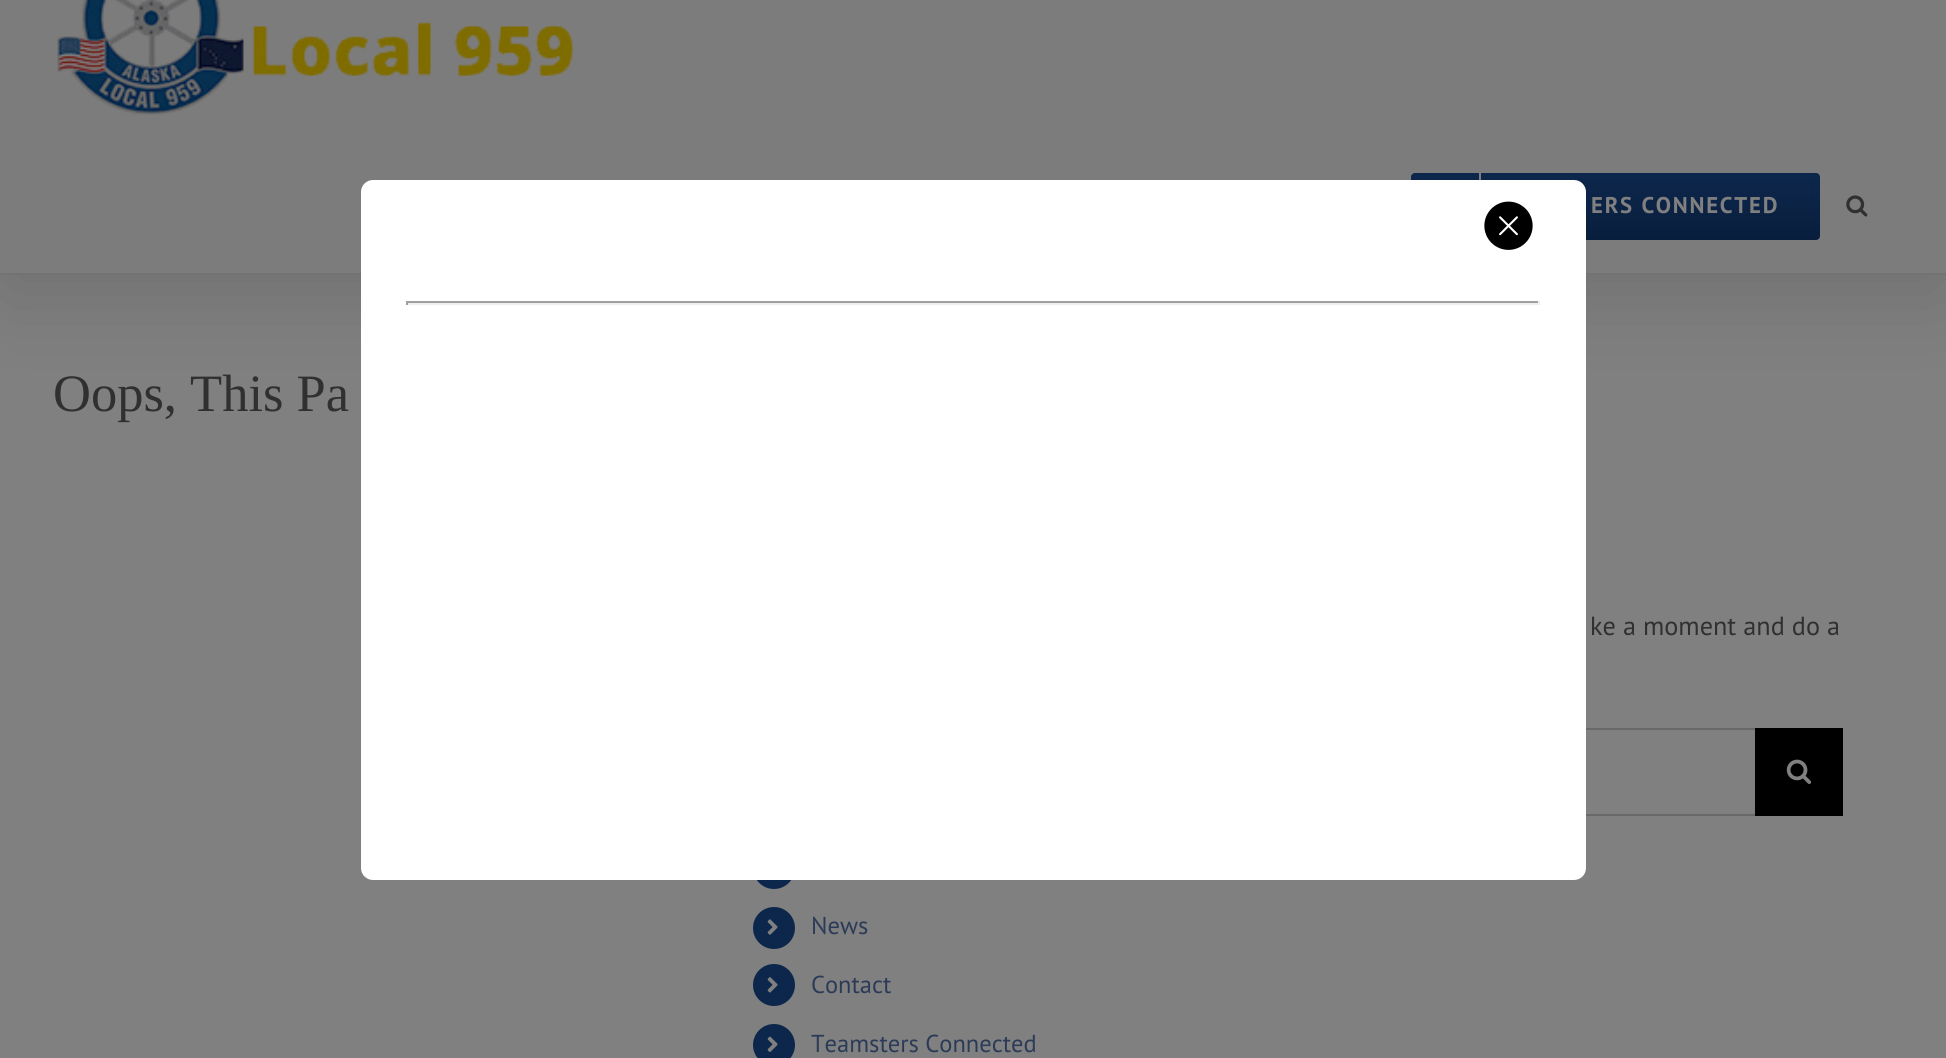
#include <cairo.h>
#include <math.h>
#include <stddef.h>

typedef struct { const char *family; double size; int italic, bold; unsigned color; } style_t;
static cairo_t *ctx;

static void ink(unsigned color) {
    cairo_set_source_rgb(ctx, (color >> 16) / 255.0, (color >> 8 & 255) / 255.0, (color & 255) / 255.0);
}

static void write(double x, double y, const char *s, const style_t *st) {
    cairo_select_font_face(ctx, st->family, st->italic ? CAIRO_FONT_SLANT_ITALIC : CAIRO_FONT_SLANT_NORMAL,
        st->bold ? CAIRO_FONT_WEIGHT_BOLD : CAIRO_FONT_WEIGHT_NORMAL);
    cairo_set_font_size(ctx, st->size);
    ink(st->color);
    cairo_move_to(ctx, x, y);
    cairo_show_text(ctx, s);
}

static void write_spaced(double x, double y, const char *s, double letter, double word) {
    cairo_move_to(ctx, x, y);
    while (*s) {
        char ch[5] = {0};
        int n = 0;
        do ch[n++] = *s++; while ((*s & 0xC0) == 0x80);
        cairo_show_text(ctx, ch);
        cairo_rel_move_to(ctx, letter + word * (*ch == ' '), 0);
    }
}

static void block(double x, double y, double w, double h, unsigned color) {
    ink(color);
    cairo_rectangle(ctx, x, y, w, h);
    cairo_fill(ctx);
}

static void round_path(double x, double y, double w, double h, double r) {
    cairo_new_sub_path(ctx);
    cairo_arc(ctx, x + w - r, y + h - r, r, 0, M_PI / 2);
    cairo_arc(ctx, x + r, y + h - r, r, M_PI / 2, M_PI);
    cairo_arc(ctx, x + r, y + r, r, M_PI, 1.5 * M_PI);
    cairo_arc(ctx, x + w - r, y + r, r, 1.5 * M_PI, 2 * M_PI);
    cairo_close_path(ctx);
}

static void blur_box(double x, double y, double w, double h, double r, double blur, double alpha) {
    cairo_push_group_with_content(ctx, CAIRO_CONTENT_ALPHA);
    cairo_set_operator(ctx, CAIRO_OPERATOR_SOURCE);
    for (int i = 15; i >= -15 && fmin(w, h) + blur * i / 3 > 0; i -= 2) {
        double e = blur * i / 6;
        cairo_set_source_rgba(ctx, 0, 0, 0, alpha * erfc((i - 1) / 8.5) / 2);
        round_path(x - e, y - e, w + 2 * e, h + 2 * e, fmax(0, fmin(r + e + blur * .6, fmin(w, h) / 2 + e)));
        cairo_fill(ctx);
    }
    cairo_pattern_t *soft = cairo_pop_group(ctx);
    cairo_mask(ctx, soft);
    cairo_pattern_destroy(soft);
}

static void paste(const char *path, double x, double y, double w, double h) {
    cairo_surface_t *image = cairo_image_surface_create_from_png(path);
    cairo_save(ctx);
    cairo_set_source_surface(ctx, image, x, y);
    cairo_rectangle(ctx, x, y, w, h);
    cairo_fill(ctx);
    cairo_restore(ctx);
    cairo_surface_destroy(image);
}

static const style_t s1 = {"Liberation Serif", 52.5, 0, 0, 0x313030};
static const style_t s2 = {"PT Sans", 26.25, 0, 0, 0x313030};
static const style_t s3 = {"PT Sans", 24.5, 0, 0, 0x2b3b57};

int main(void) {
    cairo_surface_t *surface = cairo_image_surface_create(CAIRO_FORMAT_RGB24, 1946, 1058);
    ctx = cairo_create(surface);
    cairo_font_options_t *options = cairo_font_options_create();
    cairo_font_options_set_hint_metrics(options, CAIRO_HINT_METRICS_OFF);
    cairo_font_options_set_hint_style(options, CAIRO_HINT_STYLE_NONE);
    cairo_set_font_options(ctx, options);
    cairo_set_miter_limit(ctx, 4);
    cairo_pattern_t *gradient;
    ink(0x808080);
    cairo_paint(ctx);
    ink(0x000000);
    blur_box(4, -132, 1939, 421, 0, 44, 0.14);
    block(0, 0, 1946, 273, 0x7c7c7c);
    block(0, 273, 1946, 2, 0x737373);
    gradient = cairo_pattern_create_linear(1615, 173, 1615, 240);
    cairo_pattern_add_color_stop_rgba(gradient, 0, 0.051, 0.153, 0.298, 1);
    cairo_pattern_add_color_stop_rgba(gradient, 1, 0.035, 0.118, 0.239, 1);
    cairo_set_source(ctx, gradient);
    cairo_pattern_destroy(gradient);
    round_path(1411, 173, 409, 67, 4);
    cairo_fill(ctx);
    ink(0x0d274c);
    cairo_arc(ctx, 774, 868, 21, 0, 2 * M_PI);
    cairo_fill(ctx);
    ink(0xffffff);
    round_path(362, 181, 1223, 698, 11);
    cairo_fill_preserve(ctx);
    cairo_stroke(ctx);
    paste("pic1.png", 1484, 201, 49, 49);
    block(406, 301, 1134, 2, 0x9f9f9f);
    block(1538, 301, 2, 4, 0xeeeeee);
    block(406, 303, 1134, 2, 0xeeeeee);
    block(406, 301, 2, 4, 0x9f9f9f);
    paste("pic2.png", 57, 0, 516, 115);
    block(1479, 173, 2, 7, 0x808080);
    cairo_select_font_face(ctx, "PT Sans", CAIRO_FONT_SLANT_NORMAL, CAIRO_FONT_WEIGHT_BOLD);
    cairo_set_font_size(ctx, 22.75);
    write_spaced(1591, 213, "ERS CONNECTED", 1.75, 0);
    paste("pic3.png", 1846, 195, 22, 22);
    write(53, 411, "Oops, This Pa", &s1);
    write(1590, 635, "ke a moment and do a", &s2);
    block(1586, 728, 169, 2, 0x696969);
    block(1586, 814, 169, 2, 0x696969);
    block(1755, 728, 88, 88, 0x000000);
    paste("pic4.png", 1786, 759, 26, 25);
    ink(0x0d274c);
    cairo_arc(ctx, 774, 928, 21, 0, 2 * M_PI);
    cairo_fill(ctx);
    paste("pic5.png", 767, 919, 11, 16);
    write(811, 934, "News", &s3);
    ink(0x0d274c);
    cairo_new_path(ctx);
    cairo_arc(ctx, 774, 985, 21, 0, 2 * M_PI);
    cairo_fill(ctx);
    paste("pic6.png", 767, 977, 11, 16);
    write(811, 993, "Contact", &s3);
    ink(0x0d274c);
    cairo_new_path(ctx);
    cairo_arc(ctx, 774, 1045, 21, 0, 2 * M_PI);
    cairo_fill(ctx);
    paste("pic7.png", 767, 1036, 11, 16);
    write(811, 1052, "Teamsters Connected", &s3);
    cairo_surface_write_to_png(surface, "screenshot.png");
    cairo_font_options_destroy(options);
    cairo_destroy(ctx);
    cairo_surface_destroy(surface);
    return 0;
}
